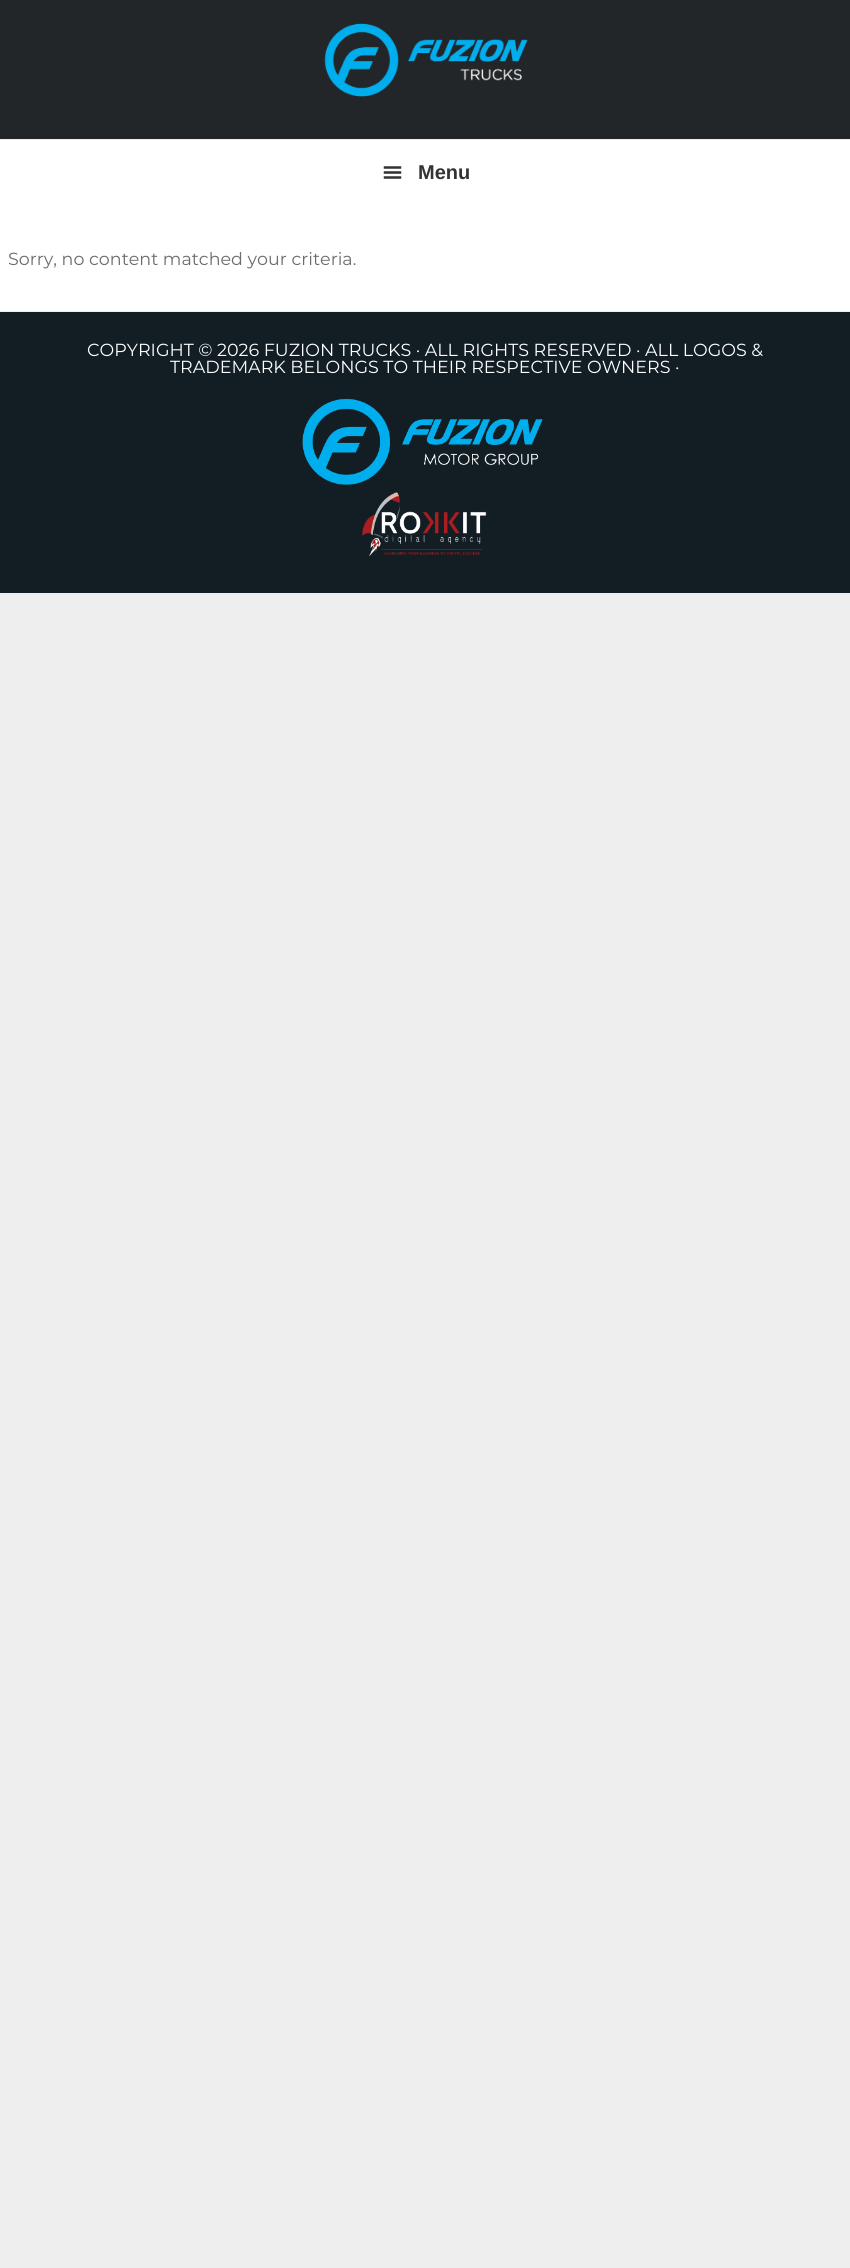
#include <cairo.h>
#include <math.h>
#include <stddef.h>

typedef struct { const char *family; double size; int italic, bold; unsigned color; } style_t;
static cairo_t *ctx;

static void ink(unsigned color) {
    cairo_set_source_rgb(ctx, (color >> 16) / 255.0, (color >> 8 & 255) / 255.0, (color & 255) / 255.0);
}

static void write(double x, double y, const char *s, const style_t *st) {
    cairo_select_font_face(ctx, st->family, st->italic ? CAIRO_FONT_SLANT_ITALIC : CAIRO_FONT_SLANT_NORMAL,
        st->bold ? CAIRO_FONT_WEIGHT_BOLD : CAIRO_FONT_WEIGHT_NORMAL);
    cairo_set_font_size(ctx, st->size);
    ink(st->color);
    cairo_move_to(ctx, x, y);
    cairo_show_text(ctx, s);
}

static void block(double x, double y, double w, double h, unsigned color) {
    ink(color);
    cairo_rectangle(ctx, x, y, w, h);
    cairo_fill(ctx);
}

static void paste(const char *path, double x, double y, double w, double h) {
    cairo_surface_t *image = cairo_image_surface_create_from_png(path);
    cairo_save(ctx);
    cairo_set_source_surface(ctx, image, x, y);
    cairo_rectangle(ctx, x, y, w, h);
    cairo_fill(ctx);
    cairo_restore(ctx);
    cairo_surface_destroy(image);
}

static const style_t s1 = {"Liberation Sans", 20, 0, 1, 0x333333};
static const style_t s2 = {"Montserrat", 17.5, 0, 0, 0x6c6c6c};
static const style_t s3 = {"Montserrat", 17.5, 0, 0, 0xffffff};

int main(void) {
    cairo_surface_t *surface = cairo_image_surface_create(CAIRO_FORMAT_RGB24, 850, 2268);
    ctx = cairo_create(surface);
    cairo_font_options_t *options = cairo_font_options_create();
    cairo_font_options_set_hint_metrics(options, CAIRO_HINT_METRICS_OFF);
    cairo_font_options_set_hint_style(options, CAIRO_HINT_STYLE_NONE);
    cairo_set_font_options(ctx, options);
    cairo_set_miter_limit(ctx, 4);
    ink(0xeeeeee);
    cairo_paint(ctx);
    block(0, 140, 850, 171, 0xffffff);
    block(0, 0, 850, 139, 0x232628);
    paste("pic1.png", 324, 23, 204, 74);
    paste("pic2.png", 383, 166, 19, 13);
    write(418, 179, "Menu", &s1);
    write(8, 265, "Sorry, no content matched your criteria.", &s2);
    block(0, 312, 850, 281, 0x121e24);
    write(87, 356, "COPYRIGHT © 2026 FUZION TRUCKS · ALL RIGHTS RESERVED · ALL LOGOS &", &s3);
    write(170, 373, "TRADEMARK BELONGS TO THEIR RESPECTIVE OWNERS ·", &s3);
    paste("pic3.png", 302, 398, 241, 87);
    paste("pic4.png", 362, 492, 125, 65);
    cairo_surface_write_to_png(surface, "screenshot.png");
    cairo_font_options_destroy(options);
    cairo_destroy(ctx);
    cairo_surface_destroy(surface);
    return 0;
}
